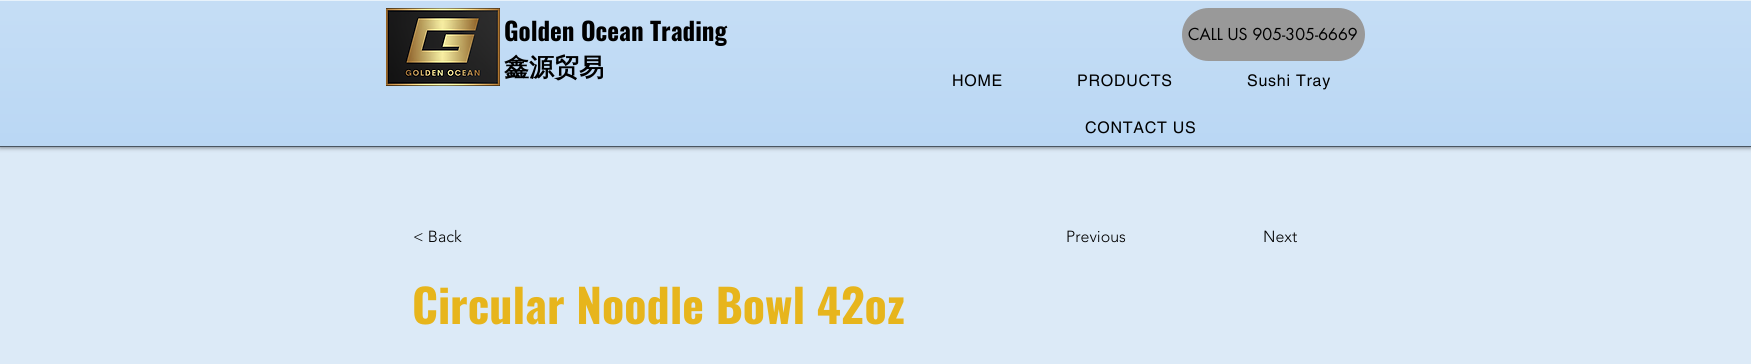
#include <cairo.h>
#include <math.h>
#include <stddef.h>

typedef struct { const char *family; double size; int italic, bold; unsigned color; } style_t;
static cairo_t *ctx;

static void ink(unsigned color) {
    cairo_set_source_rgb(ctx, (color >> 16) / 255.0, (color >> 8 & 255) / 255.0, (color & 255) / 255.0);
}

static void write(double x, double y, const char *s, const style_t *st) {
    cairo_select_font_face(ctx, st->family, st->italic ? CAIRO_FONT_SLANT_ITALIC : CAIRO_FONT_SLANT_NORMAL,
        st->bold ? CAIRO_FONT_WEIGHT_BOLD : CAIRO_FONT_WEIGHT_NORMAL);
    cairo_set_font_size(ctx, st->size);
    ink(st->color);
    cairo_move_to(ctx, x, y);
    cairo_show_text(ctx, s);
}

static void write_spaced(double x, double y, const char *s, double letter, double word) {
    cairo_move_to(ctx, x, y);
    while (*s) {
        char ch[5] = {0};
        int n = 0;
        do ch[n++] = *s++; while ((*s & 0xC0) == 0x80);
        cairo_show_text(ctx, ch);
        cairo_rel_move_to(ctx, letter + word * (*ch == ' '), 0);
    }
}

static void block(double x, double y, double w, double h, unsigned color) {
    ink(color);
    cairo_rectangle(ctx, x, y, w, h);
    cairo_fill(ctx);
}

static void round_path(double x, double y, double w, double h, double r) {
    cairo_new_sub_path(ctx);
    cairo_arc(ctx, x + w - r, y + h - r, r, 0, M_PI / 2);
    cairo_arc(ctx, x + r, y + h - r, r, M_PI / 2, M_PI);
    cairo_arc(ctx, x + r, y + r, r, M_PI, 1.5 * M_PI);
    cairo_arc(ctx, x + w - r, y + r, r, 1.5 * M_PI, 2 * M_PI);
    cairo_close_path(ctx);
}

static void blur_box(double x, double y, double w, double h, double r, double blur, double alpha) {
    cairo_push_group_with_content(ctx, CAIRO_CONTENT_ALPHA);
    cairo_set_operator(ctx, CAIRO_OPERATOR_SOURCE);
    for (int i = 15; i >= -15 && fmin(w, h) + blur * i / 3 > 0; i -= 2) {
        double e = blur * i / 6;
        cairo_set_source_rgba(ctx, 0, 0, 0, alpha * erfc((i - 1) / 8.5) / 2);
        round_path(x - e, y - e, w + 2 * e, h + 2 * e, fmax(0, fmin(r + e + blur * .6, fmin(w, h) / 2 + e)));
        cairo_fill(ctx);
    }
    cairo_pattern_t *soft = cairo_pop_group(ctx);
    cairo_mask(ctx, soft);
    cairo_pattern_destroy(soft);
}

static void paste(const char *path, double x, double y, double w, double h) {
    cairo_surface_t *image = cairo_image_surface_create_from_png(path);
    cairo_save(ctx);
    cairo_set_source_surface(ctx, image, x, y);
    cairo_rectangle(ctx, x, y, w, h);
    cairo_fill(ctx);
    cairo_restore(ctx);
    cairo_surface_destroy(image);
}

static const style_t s1 = {"Oswald", 25, 0, 1, 0x000000};
static const style_t s2 = {"WenQuanYi Zen Hei", 25, 0, 1, 0x000000};
static const style_t s3 = {"futura", 16, 0, 0, 0x000000};
static const style_t s4 = {"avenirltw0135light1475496 Light", 16, 0, 0, 0x000000};
static const style_t s5 = {"Oswald", 46, 0, 1, 0xe7b51c};

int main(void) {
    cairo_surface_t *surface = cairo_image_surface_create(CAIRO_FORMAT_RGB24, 1751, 364);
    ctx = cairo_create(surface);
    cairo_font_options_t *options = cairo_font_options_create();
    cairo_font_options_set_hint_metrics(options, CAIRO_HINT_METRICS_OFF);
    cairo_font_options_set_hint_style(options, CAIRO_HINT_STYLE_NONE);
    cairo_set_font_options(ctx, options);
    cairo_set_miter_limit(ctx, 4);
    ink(0xdceaf7);
    cairo_paint(ctx);
    ink(0x000000);
    blur_box(0, 0, 1751, 147, 0, 2.5, 0.6);
    block(0, 1, 1751, 145, 0xb1d2f2);
    paste("pic1.png", 0, 1, 1751, 145);
    block(0, 146, 1751, 1, 0x4a5661);
    block(0, 0, 1751, 1, 0xe8f2fb);
    paste("pic2.png", 386, 8, 114, 78);
    write(504, 41, "Golden Ocean Trading", &s1);
    write(504, 76, "鑫源贸易", &s2);
    ink(0x999999);
    round_path(1182, 8, 183, 53, 26.5);
    cairo_fill(ctx);
    write(1188, 40, "CALL US 905-305-6669", &s3);
    cairo_select_font_face(ctx, "helvetica", CAIRO_FONT_SLANT_NORMAL, CAIRO_FONT_WEIGHT_NORMAL);
    write_spaced(952, 86, "HOME", 0.75, 0);
    write_spaced(1077, 86, "PRODUCTS", 0.75, 0);
    write_spaced(1247, 86, "Sushi Tray", 0.75, 0);
    write_spaced(1085, 133, "CONTACT US", 0.75, 0);
    write(413, 242, "< Back", &s4);
    write(1066, 242, "Previous", &s4);
    write(1263, 242, "Next", &s4);
    write(412, 324, "Circular Noodle Bowl 42oz", &s5);
    cairo_surface_write_to_png(surface, "screenshot.png");
    cairo_font_options_destroy(options);
    cairo_destroy(ctx);
    cairo_surface_destroy(surface);
    return 0;
}
